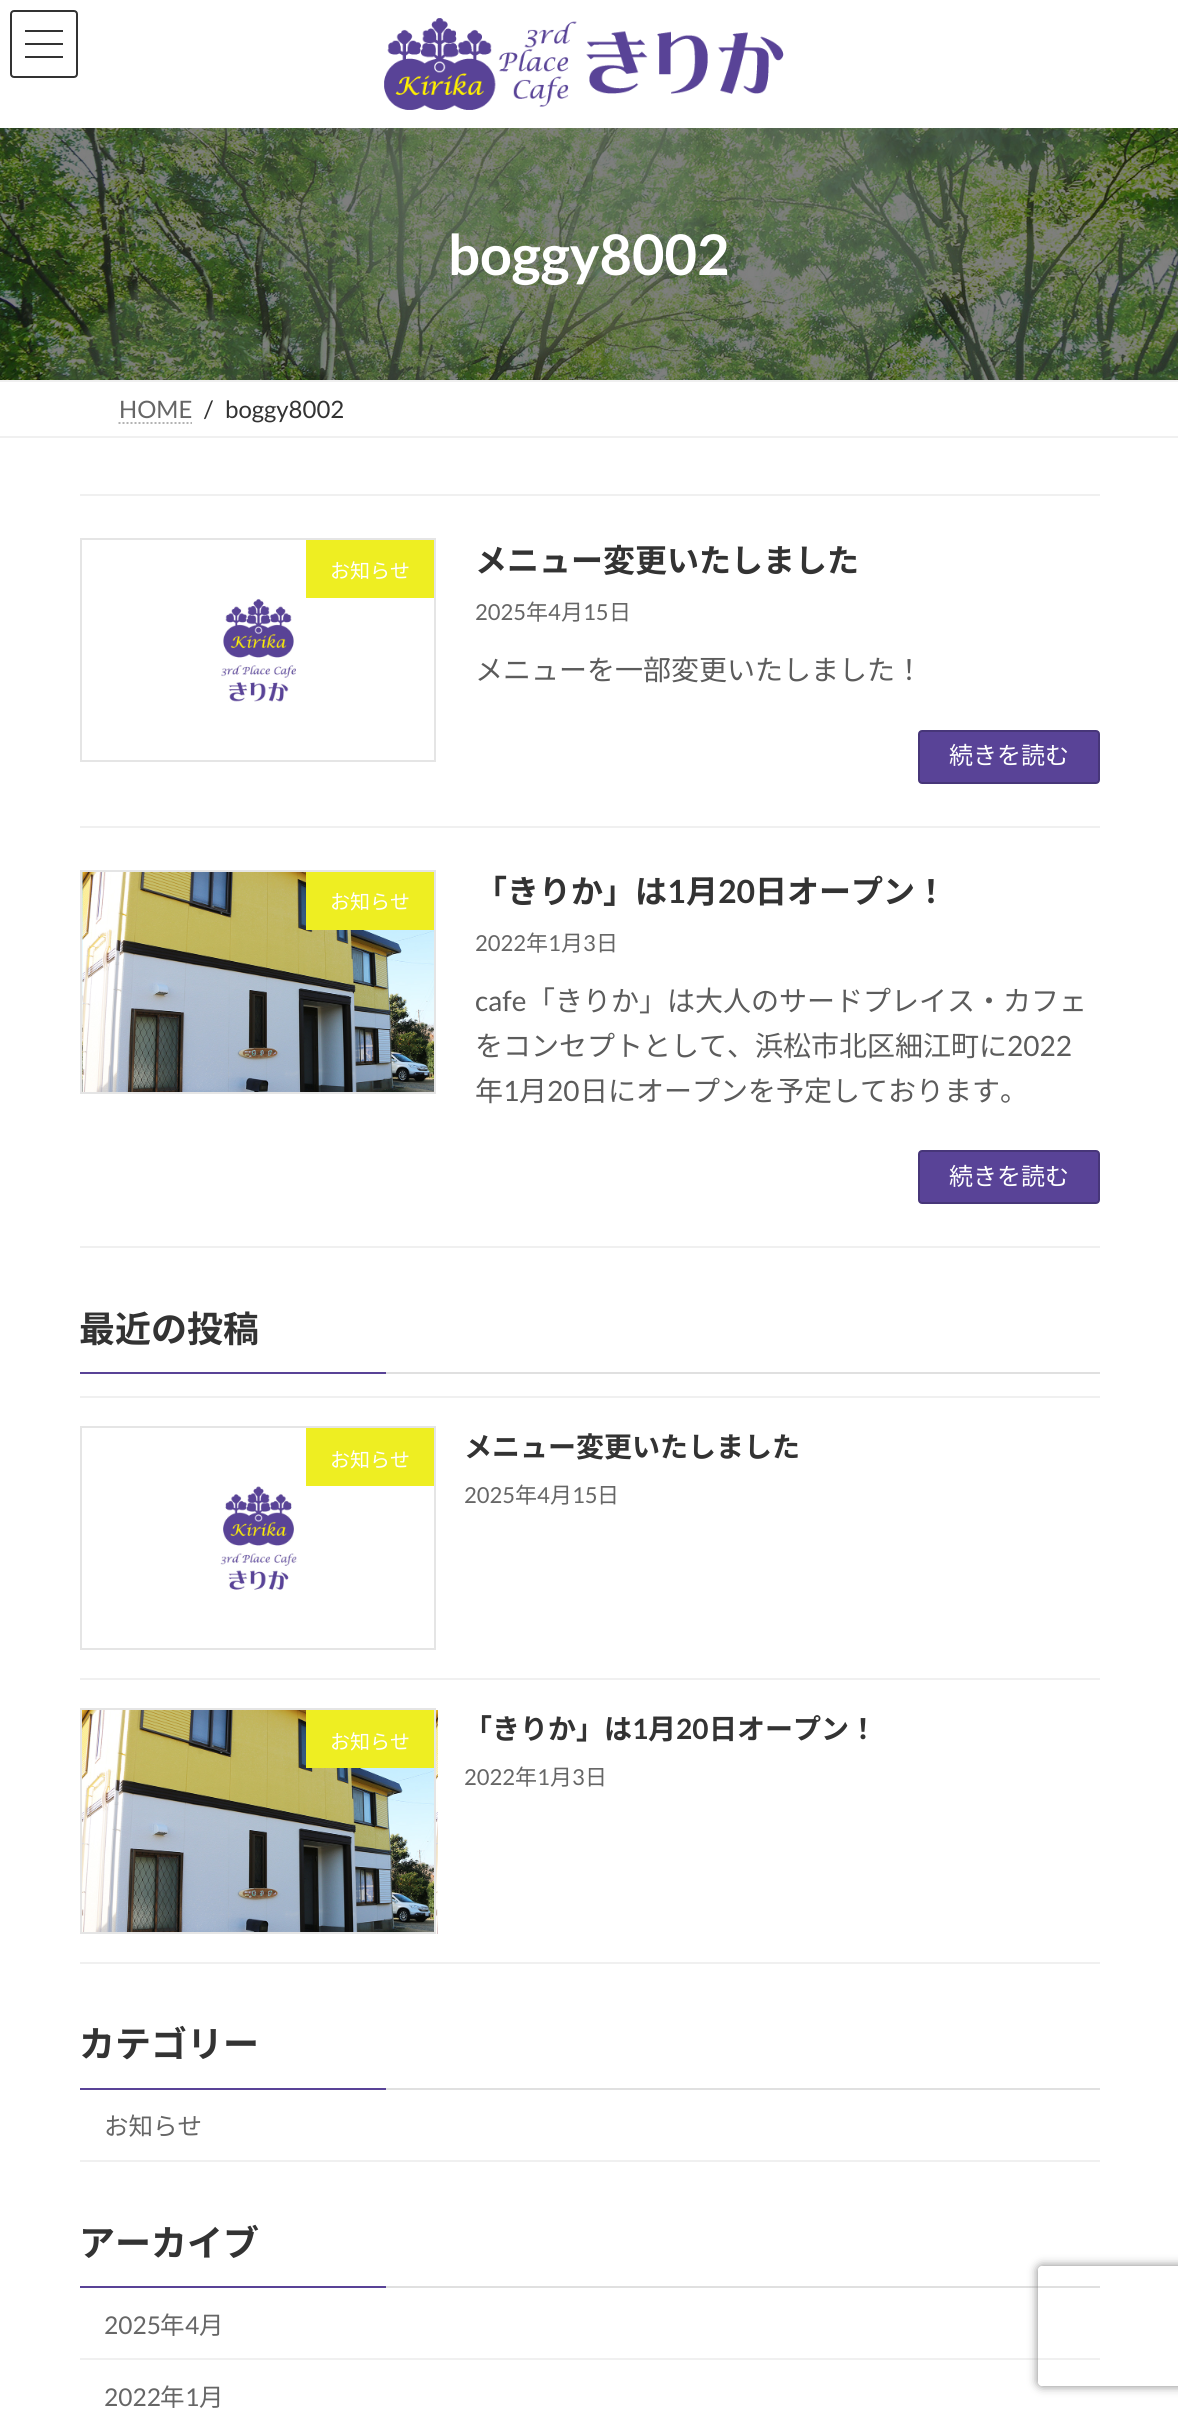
#include <cairo.h>
#include <math.h>
#include <stddef.h>

typedef struct { const char *family; double size; int italic, bold; unsigned color; } style_t;
static cairo_t *ctx;

static void ink(unsigned color) {
    cairo_set_source_rgb(ctx, (color >> 16) / 255.0, (color >> 8 & 255) / 255.0, (color & 255) / 255.0);
}

static void write(double x, double y, const char *s, const style_t *st) {
    cairo_select_font_face(ctx, st->family, st->italic ? CAIRO_FONT_SLANT_ITALIC : CAIRO_FONT_SLANT_NORMAL,
        st->bold ? CAIRO_FONT_WEIGHT_BOLD : CAIRO_FONT_WEIGHT_NORMAL);
    cairo_set_font_size(ctx, st->size);
    ink(st->color);
    cairo_move_to(ctx, x, y);
    cairo_show_text(ctx, s);
}

static void block(double x, double y, double w, double h, unsigned color) {
    ink(color);
    cairo_rectangle(ctx, x, y, w, h);
    cairo_fill(ctx);
}

static void round_path(double x, double y, double w, double h, double r) {
    cairo_new_sub_path(ctx);
    cairo_arc(ctx, x + w - r, y + h - r, r, 0, M_PI / 2);
    cairo_arc(ctx, x + r, y + h - r, r, M_PI / 2, M_PI);
    cairo_arc(ctx, x + r, y + r, r, M_PI, 1.5 * M_PI);
    cairo_arc(ctx, x + w - r, y + r, r, 1.5 * M_PI, 2 * M_PI);
    cairo_close_path(ctx);
}

static void blur_box(double x, double y, double w, double h, double r, double blur, double alpha) {
    cairo_push_group_with_content(ctx, CAIRO_CONTENT_ALPHA);
    cairo_set_operator(ctx, CAIRO_OPERATOR_SOURCE);
    for (int i = 15; i >= -15 && fmin(w, h) + blur * i / 3 > 0; i -= 2) {
        double e = blur * i / 6;
        cairo_set_source_rgba(ctx, 0, 0, 0, alpha * erfc((i - 1) / 8.5) / 2);
        round_path(x - e, y - e, w + 2 * e, h + 2 * e, fmax(0, fmin(r + e + blur * .6, fmin(w, h) / 2 + e)));
        cairo_fill(ctx);
    }
    cairo_pattern_t *soft = cairo_pop_group(ctx);
    cairo_mask(ctx, soft);
    cairo_pattern_destroy(soft);
}

static void paste(const char *path, double x, double y, double w, double h) {
    cairo_surface_t *image = cairo_image_surface_create_from_png(path);
    cairo_save(ctx);
    cairo_set_source_surface(ctx, image, x, y);
    cairo_rectangle(ctx, x, y, w, h);
    cairo_fill(ctx);
    cairo_restore(ctx);
    cairo_surface_destroy(image);
}

static const style_t s1 = {"Lato", 56, 0, 1, 0xffffff};
static const style_t s2 = {"Lato", 24, 0, 0, 0x666666};
static const style_t s3 = {"Lato", 24, 0, 0, 0x333333};
static const style_t s4 = {"Noto Sans JP", 20, 0, 0, 0xffffff};
static const style_t s5 = {"Noto Sans JP", 32, 0, 1, 0x333333};
static const style_t s6 = {"Lato", 22, 0, 0, 0x666666};
static const style_t s7 = {"Noto Sans JP", 22, 0, 0, 0x666666};
static const style_t s8 = {"Noto Sans JP", 28, 0, 0, 0x5c5c5c};
static const style_t s9 = {"Noto Sans JP", 24, 0, 0, 0xffffff};
static const style_t s10 = {"Lato", 32, 0, 1, 0x333333};
static const style_t s11 = {"Lato", 28, 0, 0, 0x5c5c5c};
static const style_t s12 = {"Noto Sans JP", 36, 0, 1, 0x333333};
static const style_t s13 = {"Noto Sans JP", 28, 0, 1, 0x333333};
static const style_t s14 = {"Lato", 28, 0, 1, 0x333333};
static const style_t s15 = {"Noto Sans JP", 24.5, 0, 0, 0x666666};
static const style_t s16 = {"Lato", 24.5, 0, 0, 0x666666};

int main(void) {
    cairo_surface_t *surface = cairo_image_surface_create(CAIRO_FORMAT_RGB24, 1178, 2414);
    ctx = cairo_create(surface);
    cairo_font_options_t *options = cairo_font_options_create();
    cairo_font_options_set_hint_metrics(options, CAIRO_HINT_METRICS_OFF);
    cairo_font_options_set_hint_style(options, CAIRO_HINT_STYLE_NONE);
    cairo_set_font_options(ctx, options);
    cairo_set_miter_limit(ctx, 4);
    ink(0xffffff);
    cairo_paint(ctx);
    block(25, 30, 38, 2, 0x333333);
    block(25, 43, 38, 2, 0x333333);
    block(25, 56, 38, 2, 0x333333);
    round_path(11, 11, 66, 66, 3);
    cairo_stroke(ctx);
    paste("pic1.png", 384, 18, 400, 92);
    paste("pic2.png", 0, 128, 1178, 252);
    write(448, 275, "boggy8002", &s1);
    block(0, 380, 1178, 2, 0xf0f0f0);
    block(0, 436, 1178, 2, 0xf0f0f0);
    write(119, 418, "HOME", &s2);
    cairo_new_path(ctx);
    cairo_move_to(ctx, 118.5, 423);
    cairo_line_to(ctx, 192, 423);
    ink(0xb3b3b3);
    cairo_set_dash(ctx, (double[]){2, 2}, 2, 0);
    cairo_stroke(ctx);
    write(204, 418, "/", &s3);
    write(225, 418, "boggy8002", &s3);
    block(80, 494, 1020, 2, 0xf0f0f0);
    block(80, 826, 1020, 2, 0xf0f0f0);
    paste("pic3.png", 221, 598, 75, 104);
    cairo_rectangle(ctx, 81, 539, 354, 222);
    ink(0xe5e5e5);
    cairo_set_dash(ctx, NULL, 0, 0);
    cairo_stroke(ctx);
    block(306, 540, 128, 58, 0xeeee22);
    write(330, 578, "お知らせ", &s4);
    write(475, 572, "メニュー変更いたしました", &s5);
    write(475, 620, "2025", &s6);
    write(526, 620, "年", &s7);
    write(548, 620, "4", &s6);
    write(561, 620, "月", &s7);
    write(583, 620, "15", &s6);
    write(609, 620, "日", &s7);
    write(475, 680, "メニューを一部変更いたしました！", &s8);
    ink(0x594397);
    round_path(919, 731, 180, 52, 3);
    cairo_fill_preserve(ctx);
    ink(0x473679);
    cairo_stroke(ctx);
    write(949, 764, "続きを読む", &s9);
    block(80, 1246, 1020, 2, 0xf0f0f0);
    paste("pic4.png", 82, 872, 352, 220);
    cairo_rectangle(ctx, 81, 871, 354, 222);
    ink(0xe5e5e5);
    cairo_stroke(ctx);
    block(306, 872, 128, 58, 0xeeee22);
    write(330, 909, "お知らせ", &s4);
    write(475, 903, "「きりか」は", &s5);
    write(667, 903, "1", &s10);
    write(686, 903, "月", &s5);
    write(718, 903, "20", &s10);
    write(755, 903, "日オープン！", &s5);
    write(475, 951, "2022", &s6);
    write(526, 951, "年", &s7);
    write(548, 951, "1", &s6);
    write(561, 951, "月", &s7);
    write(583, 951, "3", &s6);
    write(596, 951, "日", &s7);
    write(475, 1011, "cafe", &s11);
    write(527, 1011, "「きりか」は大人のサードプレイス・カフェ", &s8);
    write(475, 1056, "をコンセプトとして、浜松市北区細江町に", &s8);
    write(1007, 1056, "2022", &s11);
    write(475, 1101, "年", &s8);
    write(503, 1101, "1", &s11);
    write(519, 1101, "月", &s8);
    write(547, 1101, "20", &s11);
    write(580, 1101, "日にオープンを予定しております。", &s8);
    ink(0x594397);
    round_path(919, 1151, 180, 52, 3);
    cairo_fill_preserve(ctx);
    ink(0x473679);
    cairo_stroke(ctx);
    write(949, 1185, "続きを読む", &s9);
    block(386, 1372, 714, 2, 0xe0e0e0);
    write(79, 1342, "最近の投稿", &s12);
    block(80, 1372, 306, 2, 0x594397);
    block(80, 1396, 1020, 2, 0xf0f0f0);
    block(80, 1678, 1020, 2, 0xf0f0f0);
    paste("pic5.png", 220, 1486, 78, 104);
    cairo_rectangle(ctx, 81, 1427, 354, 222);
    ink(0xe5e5e5);
    cairo_stroke(ctx);
    block(306, 1428, 128, 58, 0xeeee22);
    write(330, 1467, "お知らせ", &s4);
    write(464, 1457, "メニュー変更いたしました", &s13);
    write(464, 1503, "2025", &s6);
    write(515, 1503, "年", &s7);
    write(537, 1503, "4", &s6);
    write(550, 1503, "月", &s7);
    write(572, 1503, "15", &s6);
    write(597, 1503, "日", &s7);
    block(80, 1962, 1020, 2, 0xf0f0f0);
    paste("pic6.png", 82, 1710, 356, 224);
    cairo_rectangle(ctx, 81, 1709, 354, 224);
    ink(0xe5e5e5);
    cairo_stroke(ctx);
    block(306, 1710, 128, 58, 0xeeee22);
    write(330, 1749, "お知らせ", &s4);
    write(464, 1739, "「きりか」は", &s13);
    write(632, 1739, "1", &s14);
    write(648, 1739, "月", &s13);
    write(676, 1739, "20", &s14);
    write(709, 1739, "日オープン！", &s13);
    write(464, 1785, "2022", &s6);
    write(515, 1785, "年", &s7);
    write(537, 1785, "1", &s6);
    write(550, 1785, "月", &s7);
    write(572, 1785, "3", &s6);
    write(585, 1785, "日", &s7);
    block(386, 2088, 714, 2, 0xe0e0e0);
    write(79, 2057, "カテゴリー", &s12);
    block(80, 2088, 306, 2, 0x594397);
    block(80, 2160, 1020, 2, 0xf0f0f0);
    write(104, 2135, "お知らせ", &s15);
    block(386, 2286, 714, 2, 0xe0e0e0);
    write(79, 2256, "アーカイブ", &s12);
    block(80, 2286, 306, 2, 0x594397);
    block(80, 2358, 1020, 2, 0xf0f0f0);
    write(104, 2334, "2025", &s16);
    write(160, 2334, "年", &s15);
    write(185, 2334, "4", &s16);
    write(199, 2334, "月", &s15);
    write(104, 2406, "2022", &s16);
    write(160, 2406, "年", &s15);
    write(185, 2406, "1", &s16);
    write(199, 2406, "月", &s15);
    cairo_save(ctx);
    cairo_set_fill_rule(ctx, CAIRO_FILL_RULE_EVEN_ODD);
    cairo_new_path(ctx);
    cairo_move_to(ctx, 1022, 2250);
    cairo_line_to(ctx, 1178, 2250);
    cairo_line_to(ctx, 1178, 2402);
    cairo_line_to(ctx, 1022, 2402);
    cairo_close_path(ctx);
    cairo_move_to(ctx, 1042, 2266);
    cairo_line_to(ctx, 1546, 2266);
    cairo_curve_to(ctx, 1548, 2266, 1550, 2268, 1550, 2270);
    cairo_line_to(ctx, 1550, 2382);
    cairo_curve_to(ctx, 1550, 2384, 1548, 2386, 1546, 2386);
    cairo_line_to(ctx, 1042, 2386);
    cairo_curve_to(ctx, 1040, 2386, 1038, 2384, 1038, 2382);
    cairo_line_to(ctx, 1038, 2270);
    cairo_curve_to(ctx, 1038, 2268, 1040, 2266, 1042, 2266);
    cairo_close_path(ctx);
    cairo_clip(ctx);
    ink(0x808080);
    blur_box(1038, 2266, 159, 120, 4, 5, 1);
    cairo_restore(ctx);
    cairo_surface_write_to_png(surface, "screenshot.png");
    cairo_font_options_destroy(options);
    cairo_destroy(ctx);
    cairo_surface_destroy(surface);
    return 0;
}
